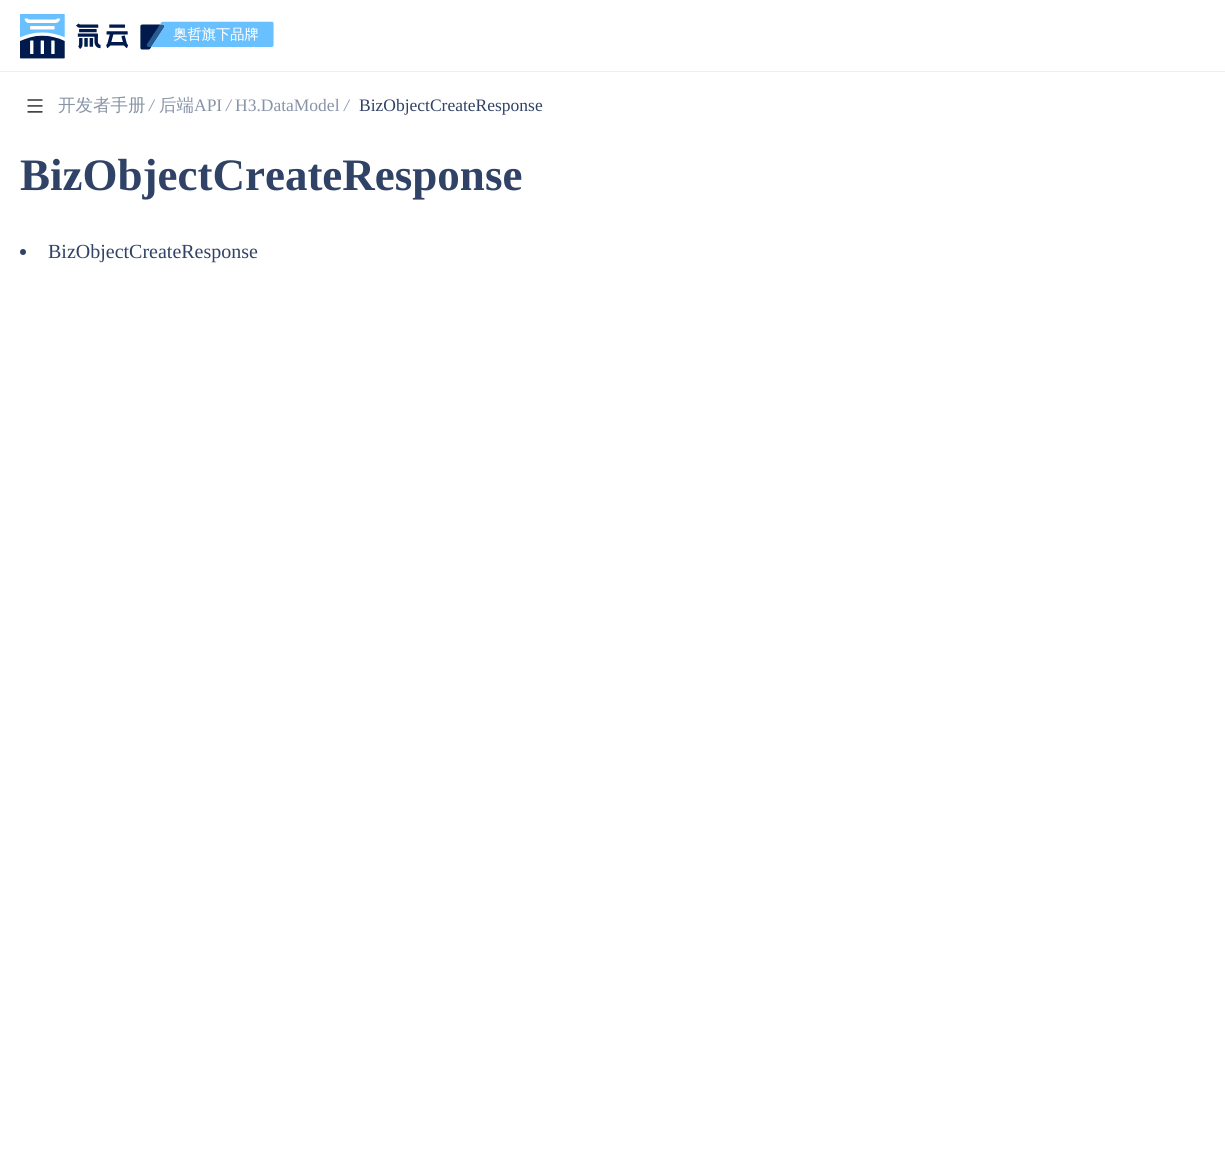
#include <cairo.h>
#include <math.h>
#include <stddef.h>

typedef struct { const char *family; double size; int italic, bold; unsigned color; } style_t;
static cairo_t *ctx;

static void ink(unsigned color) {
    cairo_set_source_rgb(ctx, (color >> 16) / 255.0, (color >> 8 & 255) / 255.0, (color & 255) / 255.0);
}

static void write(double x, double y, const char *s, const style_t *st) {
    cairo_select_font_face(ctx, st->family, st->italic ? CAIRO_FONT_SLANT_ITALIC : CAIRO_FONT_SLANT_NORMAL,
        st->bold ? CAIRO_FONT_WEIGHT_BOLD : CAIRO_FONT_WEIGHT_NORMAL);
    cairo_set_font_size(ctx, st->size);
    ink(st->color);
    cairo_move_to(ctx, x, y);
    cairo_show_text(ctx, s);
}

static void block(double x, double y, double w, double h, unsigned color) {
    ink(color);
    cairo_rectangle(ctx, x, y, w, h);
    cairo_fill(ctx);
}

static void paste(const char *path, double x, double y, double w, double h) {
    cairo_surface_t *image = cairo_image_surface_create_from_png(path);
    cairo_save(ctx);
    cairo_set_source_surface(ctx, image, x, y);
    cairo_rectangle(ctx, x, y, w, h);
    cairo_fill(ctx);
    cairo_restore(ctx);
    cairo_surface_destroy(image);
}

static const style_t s1 = {"WenQuanYi Zen Hei Medium", 17.5, 0, 0, 0x8893a7};
static const style_t s2 = {"Liberation Serif", 17.5, 1, 0, 0x8893a7};
static const style_t s3 = {"Liberation Serif", 17.5, 0, 0, 0x8893a7};
static const style_t s4 = {"Liberation Serif", 17.5, 0, 0, 0x304265};
static const style_t s5 = {"Liberation Serif", 45, 0, 1, 0x304265};
static const style_t s6 = {"Liberation Serif", 20, 0, 0, 0x304265};

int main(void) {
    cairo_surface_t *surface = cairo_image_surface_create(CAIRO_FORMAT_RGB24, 1225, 1155);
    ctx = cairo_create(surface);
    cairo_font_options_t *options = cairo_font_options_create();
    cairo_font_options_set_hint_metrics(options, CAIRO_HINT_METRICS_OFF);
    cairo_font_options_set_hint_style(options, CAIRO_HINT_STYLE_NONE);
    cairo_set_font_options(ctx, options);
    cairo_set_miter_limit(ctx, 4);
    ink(0xffffff);
    cairo_paint(ctx);
    block(0, 71, 1225, 1, 0xefefef);
    paste("pic1.png", 20, 14, 254, 45);
    paste("pic2.png", 27, 99, 16, 14);
    write(58, 111, "开发者手册", &s1);
    write(149, 111, "/", &s2);
    write(159, 111, "后端", &s1);
    write(194, 111, "API", &s3);
    write(226, 111, "/", &s2);
    write(235, 111, "H3.DataModel", &s3);
    write(344, 111, "/", &s2);
    write(359, 111, "BizObjectCreateResponse", &s4);
    write(20, 190, "BizObjectCreateResponse", &s5);
    cairo_new_path(ctx);
    cairo_arc(ctx, 23, 252, 3, 0, 2 * M_PI);
    cairo_fill(ctx);
    write(48, 258, "BizObjectCreateResponse", &s6);
    cairo_surface_write_to_png(surface, "screenshot.png");
    cairo_font_options_destroy(options);
    cairo_destroy(ctx);
    cairo_surface_destroy(surface);
    return 0;
}
